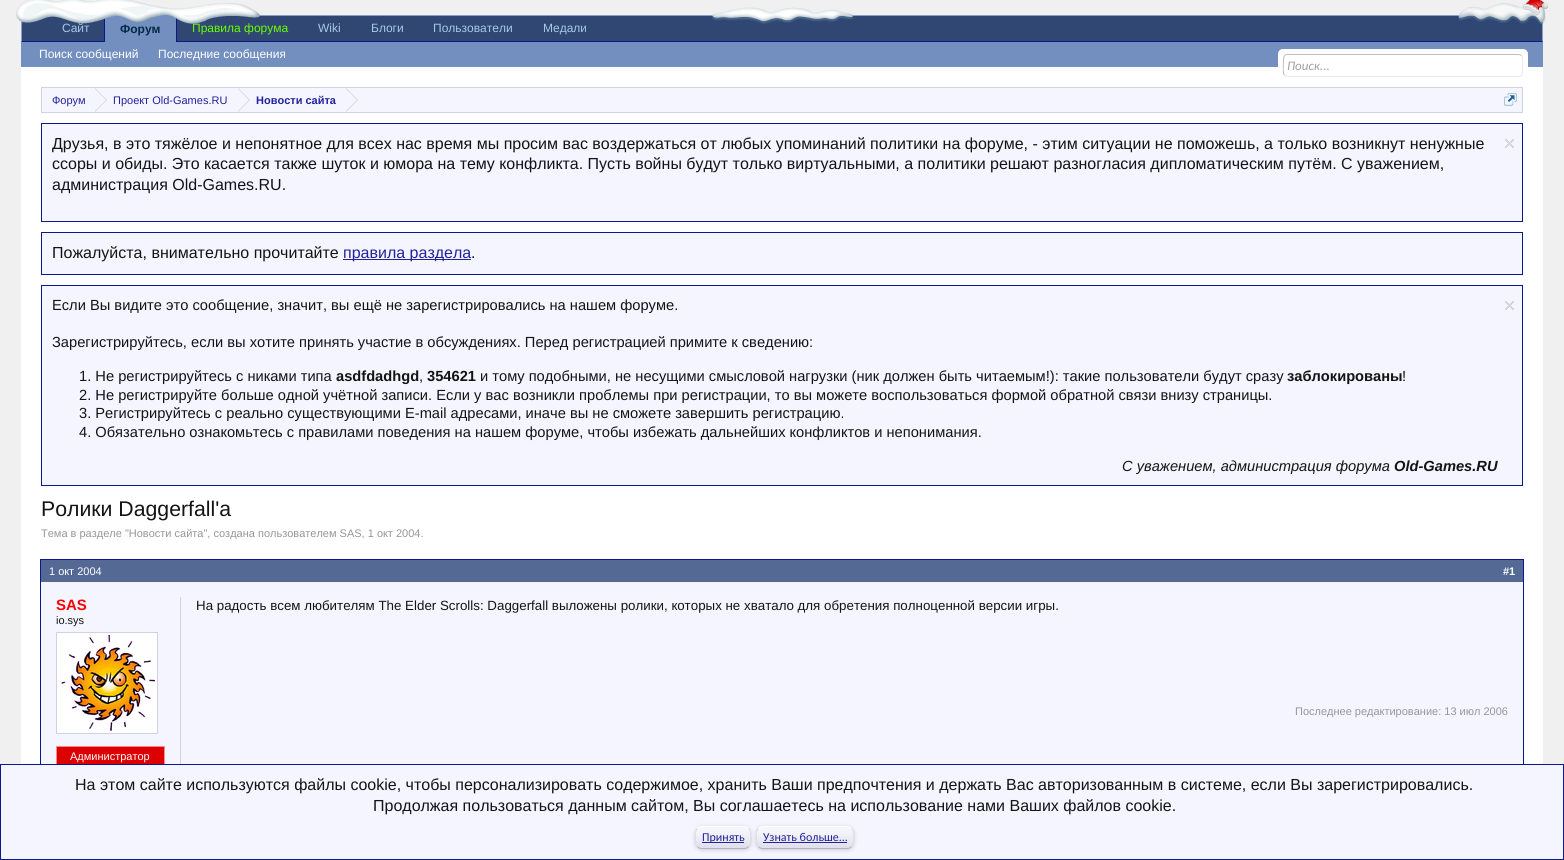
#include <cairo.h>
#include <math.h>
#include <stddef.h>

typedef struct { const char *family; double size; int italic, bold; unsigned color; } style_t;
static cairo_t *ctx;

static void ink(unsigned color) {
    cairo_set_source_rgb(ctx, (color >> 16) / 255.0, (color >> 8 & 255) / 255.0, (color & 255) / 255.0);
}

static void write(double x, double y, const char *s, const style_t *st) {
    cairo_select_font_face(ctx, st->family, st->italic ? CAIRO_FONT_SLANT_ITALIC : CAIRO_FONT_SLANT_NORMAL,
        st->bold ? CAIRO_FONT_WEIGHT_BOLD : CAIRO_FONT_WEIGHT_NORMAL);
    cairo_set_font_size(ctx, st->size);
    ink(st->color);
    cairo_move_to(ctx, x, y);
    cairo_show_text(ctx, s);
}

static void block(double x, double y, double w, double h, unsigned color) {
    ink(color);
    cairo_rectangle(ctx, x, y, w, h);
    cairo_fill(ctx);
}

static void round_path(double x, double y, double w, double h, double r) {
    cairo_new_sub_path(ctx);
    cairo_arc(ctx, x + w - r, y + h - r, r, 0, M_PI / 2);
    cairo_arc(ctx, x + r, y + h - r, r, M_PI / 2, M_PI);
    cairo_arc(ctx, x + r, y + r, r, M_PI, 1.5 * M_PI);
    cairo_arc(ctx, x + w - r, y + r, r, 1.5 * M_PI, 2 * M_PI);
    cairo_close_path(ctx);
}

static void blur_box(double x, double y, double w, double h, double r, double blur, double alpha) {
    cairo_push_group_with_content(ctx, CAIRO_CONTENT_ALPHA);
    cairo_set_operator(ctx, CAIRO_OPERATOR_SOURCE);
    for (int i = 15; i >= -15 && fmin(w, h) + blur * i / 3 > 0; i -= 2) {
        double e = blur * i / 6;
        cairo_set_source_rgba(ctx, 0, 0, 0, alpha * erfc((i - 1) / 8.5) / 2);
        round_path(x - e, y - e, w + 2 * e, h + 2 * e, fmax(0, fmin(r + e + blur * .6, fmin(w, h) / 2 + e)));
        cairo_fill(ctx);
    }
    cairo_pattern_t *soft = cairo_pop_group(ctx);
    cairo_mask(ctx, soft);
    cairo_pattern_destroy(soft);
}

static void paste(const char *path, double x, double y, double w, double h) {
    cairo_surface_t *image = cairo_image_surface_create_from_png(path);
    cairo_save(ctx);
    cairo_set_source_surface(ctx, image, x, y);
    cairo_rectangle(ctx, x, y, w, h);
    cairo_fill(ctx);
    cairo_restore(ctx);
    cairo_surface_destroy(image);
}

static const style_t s1 = {"Liberation Sans", 12, 0, 0, 0xa5cae4};
static const style_t s2 = {"Liberation Sans", 12, 0, 0, 0x66ff00};
static const style_t s3 = {"Liberation Sans", 12, 0, 1, 0x032a46};
static const style_t s4 = {"Liberation Sans", 12, 0, 0, 0xffffff};
static const style_t s5 = {"Carlito", 13, 1, 0, 0xa0a0a0};
static const style_t s6 = {"Liberation Sans", 11, 0, 0, 0x22229c};
static const style_t s7 = {"Liberation Sans", 11, 0, 1, 0x22229c};
static const style_t s8 = {"Liberation Sans", 16, 0, 0, 0x141414};
static const style_t s9 = {"Liberation Sans", 16, 0, 0, 0x22229c};
static const style_t s10 = {"Liberation Sans", 14.67, 0, 0, 0x141414};
static const style_t s11 = {"Liberation Sans", 14.67, 0, 1, 0x141414};
static const style_t s12 = {"Liberation Sans", 14.67, 1, 0, 0x141414};
static const style_t s13 = {"Liberation Sans", 14.67, 1, 1, 0x141414};
static const style_t s14 = {"Liberation Sans", 21.25, 0, 0, 0x141414};
static const style_t s15 = {"Liberation Sans", 11, 0, 0, 0x969696};
static const style_t s16 = {"Liberation Sans", 11, 0, 0, 0xffffff};
static const style_t s17 = {"Liberation Sans", 11, 0, 1, 0xffffff};
static const style_t s18 = {"Liberation Sans", 13.33, 0, 0, 0x141414};
static const style_t s19 = {"Liberation Sans", 15, 0, 1, 0xff0000};
static const style_t s20 = {"Liberation Sans", 11, 0, 0, 0x141414};
static const style_t s21 = {"Carlito", 12, 0, 0, 0x22229c};

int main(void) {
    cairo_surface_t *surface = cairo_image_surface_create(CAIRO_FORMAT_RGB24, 1564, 860);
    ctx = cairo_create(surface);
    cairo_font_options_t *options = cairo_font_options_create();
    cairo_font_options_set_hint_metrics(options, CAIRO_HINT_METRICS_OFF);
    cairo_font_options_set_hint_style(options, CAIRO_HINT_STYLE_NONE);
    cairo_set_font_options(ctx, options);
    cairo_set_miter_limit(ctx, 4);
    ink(0xf0f0f0);
    cairo_paint(ctx);
    ink(0x304774);
    cairo_new_path(ctx);
    cairo_move_to(ctx, 31, 15);
    cairo_line_to(ctx, 1533, 15);
    cairo_curve_to(ctx, 1538.5, 15, 1543, 19.5, 1543, 25);
    cairo_line_to(ctx, 1543, 42);
    cairo_line_to(ctx, 21, 42);
    cairo_line_to(ctx, 21, 25);
    cairo_curve_to(ctx, 21, 19.5, 25.5, 15, 31, 15);
    cairo_close_path(ctx);
    cairo_fill(ctx);
    ink(0x899fc5);
    cairo_new_path(ctx);
    cairo_move_to(ctx, 31, 15);
    cairo_curve_to(ctx, 28, 15, 26, 16, 24, 18);
    cairo_line_to(ctx, 25, 19);
    cairo_curve_to(ctx, 26, 17, 28, 16, 31, 16);
    cairo_line_to(ctx, 1533, 16);
    cairo_curve_to(ctx, 1536, 16, 1538, 17, 1539, 19);
    cairo_line_to(ctx, 1540, 18);
    cairo_curve_to(ctx, 1538, 16, 1536, 15, 1533, 15);
    cairo_close_path(ctx);
    cairo_fill(ctx);
    cairo_new_path(ctx);
    cairo_move_to(ctx, 1543, 42);
    cairo_line_to(ctx, 1543, 25);
    cairo_curve_to(ctx, 1543, 22, 1542, 19.5, 1540, 18);
    cairo_line_to(ctx, 1539.5, 18.5);
    cairo_curve_to(ctx, 1541, 20, 1542, 22.5, 1542, 25);
    cairo_line_to(ctx, 1542, 41);
    cairo_close_path(ctx);
    cairo_fill(ctx);
    ink(0x0b198c);
    cairo_new_path(ctx);
    cairo_move_to(ctx, 1543, 42);
    cairo_line_to(ctx, 1542, 41);
    cairo_line_to(ctx, 22, 41);
    cairo_line_to(ctx, 21, 42);
    cairo_close_path(ctx);
    cairo_fill(ctx);
    ink(0x899fc5);
    cairo_new_path(ctx);
    cairo_move_to(ctx, 21, 42);
    cairo_line_to(ctx, 22, 41);
    cairo_line_to(ctx, 22, 25);
    cairo_curve_to(ctx, 22, 22.5, 23, 20, 24.5, 18.5);
    cairo_line_to(ctx, 24, 18);
    cairo_curve_to(ctx, 22, 19.5, 21, 22, 21, 25);
    cairo_close_path(ctx);
    cairo_fill(ctx);
    write(62, 32, "Сайт", &s1);
    write(192, 32, "Правила форума", &s2);
    write(318, 32, "Wiki", &s1);
    write(371, 32, "Блоги", &s1);
    write(433, 32, "Пользователи", &s1);
    write(543, 32, "Медали", &s1);
    ink(0x738fbf);
    cairo_rectangle(ctx, 104.5, 14.5, 72, 28);
    cairo_fill_preserve(ctx);
    ink(0x0b198c);
    cairo_set_line_width(ctx, 1);
    cairo_stroke(ctx);
    paste("pic1.png", 16, 0, 1532, 24);
    write(120, 33, "Форум", &s3);
    block(21, 42, 1522, 25, 0x738fbf);
    write(39, 58, "Поиск сообщений", &s4);
    write(158, 58, "Последние сообщения", &s4);
    block(21, 67, 1522, 697, 0xffffff);
    ink(0xfcfcff);
    round_path(1278, 49, 250, 28, 5);
    cairo_fill(ctx);
    block(1278, 54, 250, 23, 0xffffff);
    cairo_new_path(ctx);
    cairo_move_to(ctx, 1521.5, 55.5);
    cairo_curve_to(ctx, 1523.5, 58, 1522.5, 67.5, 1522.5, 70.5);
    cairo_curve_to(ctx, 1522.5, 73, 1522.5, 76.5, 1519, 76.5);
    cairo_line_to(ctx, 1287, 76.5);
    cairo_line_to(ctx, 1284.5, 75.5);
    ink(0xe9e9e9);
    cairo_stroke(ctx);
    cairo_new_path(ctx);
    cairo_move_to(ctx, 1284.5, 75.5);
    cairo_curve_to(ctx, 1282.5, 73, 1283.5, 63.5, 1283.5, 60.5);
    cairo_curve_to(ctx, 1283.5, 58, 1283.5, 54.5, 1287, 54.5);
    cairo_line_to(ctx, 1519, 54.5);
    cairo_line_to(ctx, 1521.5, 55.5);
    ink(0xc0c0c0);
    cairo_stroke(ctx);
    write(1287, 70, "Поиск...", &s5);
    ink(0xf5f5ff);
    cairo_rectangle(ctx, 41.5, 87.5, 1481, 25);
    cairo_fill_preserve(ctx);
    ink(0xd1d1e1);
    cairo_stroke(ctx);
    write(52, 104, "Форум", &s6);
    ink(0xd1d1e1);
    cairo_new_path(ctx);
    cairo_move_to(ctx, 95, 112);
    cairo_line_to(ctx, 95, 88);
    cairo_line_to(ctx, 107, 100);
    cairo_close_path(ctx);
    cairo_fill(ctx);
    ink(0xf5f5ff);
    cairo_new_path(ctx);
    cairo_move_to(ctx, 94, 112);
    cairo_line_to(ctx, 94, 88);
    cairo_line_to(ctx, 106, 100);
    cairo_close_path(ctx);
    cairo_fill(ctx);
    write(113, 104, "Проект Old-Games.RU", &s6);
    ink(0xd1d1e1);
    cairo_new_path(ctx);
    cairo_move_to(ctx, 238, 112);
    cairo_line_to(ctx, 238, 88);
    cairo_line_to(ctx, 250, 100);
    cairo_close_path(ctx);
    cairo_fill(ctx);
    ink(0xf5f5ff);
    cairo_new_path(ctx);
    cairo_move_to(ctx, 237, 112);
    cairo_line_to(ctx, 237, 88);
    cairo_line_to(ctx, 249, 100);
    cairo_close_path(ctx);
    cairo_fill(ctx);
    write(256, 104, "Новости сайта", &s7);
    ink(0xd1d1e1);
    cairo_new_path(ctx);
    cairo_move_to(ctx, 346, 112);
    cairo_line_to(ctx, 346, 88);
    cairo_line_to(ctx, 358, 100);
    cairo_close_path(ctx);
    cairo_fill(ctx);
    ink(0xf5f5ff);
    cairo_new_path(ctx);
    cairo_move_to(ctx, 345, 112);
    cairo_line_to(ctx, 345, 88);
    cairo_line_to(ctx, 357, 100);
    cairo_close_path(ctx);
    cairo_fill(ctx);
    paste("pic2.png", 1504, 93, 13, 13);
    cairo_rectangle(ctx, 41.5, 123.5, 1481, 98);
    cairo_fill_preserve(ctx);
    ink(0x0b198c);
    cairo_stroke(ctx);
    write(52, 149, "Друзья, в это тяжёлое и непонятное для всех нас время мы просим вас воздержаться от любых упоминаний политики на форуме, - этим ситуации не поможешь, а только возникнут ненужные", &s8);
    write(52, 169, "ссоры и обиды. Это касается также шуток и юмора на тему конфликта. Пусть войны будут только виртуальными, а политики решают разногласия дипломатическим путём. С уважением,", &s8);
    write(52, 190, "администрация Old-Games.RU.", &s8);
    paste("pic3.png", 1505, 139, 9, 9);
    ink(0xf5f5ff);
    cairo_rectangle(ctx, 41.5, 232.5, 1481, 42);
    cairo_fill_preserve(ctx);
    ink(0x0b198c);
    cairo_stroke(ctx);
    write(52, 258, "Пожалуйста, внимательно прочитайте", &s8);
    block(343, 259, 128, 1, 0x22229c);
    write(343, 258, "правила раздела", &s9);
    write(471, 258, ".", &s8);
    ink(0xf5f5ff);
    cairo_rectangle(ctx, 41.5, 285.5, 1481, 200);
    cairo_fill_preserve(ctx);
    ink(0x0b198c);
    cairo_stroke(ctx);
    write(52, 310, "Если Вы видите это сообщение, значит, вы ещё не зарегистрировались на нашем форуме.", &s10);
    write(52, 347, "Зарегистрируйтесь, если вы хотите принять участие в обсуждениях. Перед регистрацией примите к сведению:", &s10);
    write(79, 381, "1. Не регистрируйтесь с никами типа", &s10);
    write(336, 381, "asdfdadhgd", &s11);
    write(419, 381, ",", &s10);
    write(427, 381, "354621", &s11);
    write(480, 381, "и тому подобными, не несущими смысловой нагрузки (ник должен быть читаемым!): такие пользователи будут сразу", &s10);
    write(1287, 381, "заблокированы", &s11);
    write(1402, 381, "!", &s10);
    write(79, 400, "2. Не регистрируйте больше одной учётной записи. Если у вас возникли проблемы при регистрации, то вы можете воспользоваться формой обратной связи внизу страницы.", &s10);
    write(79, 418, "3. Регистрируйтесь с реально существующими E-mail адресами, иначе вы не сможете завершить регистрацию.", &s10);
    write(79, 437, "4. Обязательно ознакомьтесь с правилами поведения на нашем форуме, чтобы избежать дальнейших конфликтов и непонимания.", &s10);
    write(1122, 471, "С уважением, администрация форума", &s12);
    write(1394, 471, "Old-Games.RU", &s13);
    paste("pic3.png", 1505, 301, 9, 9);
    write(41, 516, "Ролики Daggerfall'a", &s14);
    write(41, 537, "Тема в разделе \"Новости сайта\", создана пользователем SAS, 1 окт 2004.", &s15);
    cairo_rectangle(ctx, 40.5, 559.5, 1483, 270);
    ink(0x0b198c);
    cairo_stroke(ctx);
    block(41, 582, 1482, 182, 0xf5f5ff);
    block(41, 560, 1482, 22, 0x546994);
    write(49, 575, "1 окт 2004", &s16);
    write(1503, 575, "#1", &s17);
    write(196, 610, "На радость всем любителям The Elder Scrolls: Daggerfall выложены ролики, которых не хватало для обретения полноценной версии игры.", &s18);
    write(1295, 715, "Последнее редактирование: 13 июл 2006", &s15);
    block(180, 597, 1, 167, 0xd1d1e1);
    write(56, 610, "SAS", &s19);
    write(56, 624, "io.sys", &s20);
    ink(0xffffff);
    cairo_rectangle(ctx, 56.5, 632.5, 101, 101);
    cairo_fill_preserve(ctx);
    ink(0xd1d1e1);
    cairo_stroke(ctx);
    paste("pic4.png", 61, 635, 94, 96);
    block(57, 747, 107, 17, 0xdd0000);
    cairo_rectangle(ctx, 56.5, 746.5, 108, 19);
    ink(0xff8888);
    cairo_stroke(ctx);
    write(70, 760, "Администратор", &s16);
    ink(0xf5f5ff);
    cairo_rectangle(ctx, 0.5, 764.5, 1563, 95);
    cairo_fill_preserve(ctx);
    ink(0x0b198c);
    cairo_stroke(ctx);
    write(75, 790, "На этом сайте используются файлы cookie, чтобы персонализировать содержимое, хранить Ваши предпочтения и держать Вас авторизованным в системе, если Вы зарегистрировались.", &s8);
    write(373, 811, "Продолжая пользоваться данным сайтом, Вы соглашаетесь на использование нами Ваших файлов cookie.", &s8);
    ink(0xc8c8d2);
    blur_box(695, 827, 56, 23, 7, 2, 1);
    ink(0xdcdceb);
    round_path(695, 826, 56, 23, 7);
    cairo_fill(ctx);
    paste("pic5.png", 695, 827, 56, 21);
    cairo_new_path(ctx);
    cairo_move_to(ctx, 697.5, 828.5);
    cairo_curve_to(ctx, 698.5, 827, 700.5, 826.5, 702, 826.5);
    cairo_line_to(ctx, 744, 826.5);
    cairo_curve_to(ctx, 745.5, 826.5, 747.5, 827, 748.5, 828.5);
    ink(0xffffff);
    cairo_stroke(ctx);
    cairo_new_path(ctx);
    cairo_move_to(ctx, 748.5, 828.5);
    cairo_curve_to(ctx, 751, 831, 750.5, 834.5, 750.5, 837.5);
    cairo_curve_to(ctx, 750.5, 840.5, 751, 844, 748.5, 846.5);
    ink(0xddddeb);
    cairo_stroke(ctx);
    cairo_new_path(ctx);
    cairo_move_to(ctx, 748.5, 846.5);
    cairo_curve_to(ctx, 747.5, 848, 745.5, 848.5, 744, 848.5);
    cairo_line_to(ctx, 702, 848.5);
    cairo_curve_to(ctx, 700.5, 848.5, 698.5, 848, 697.5, 846.5);
    ink(0xb3b3bd);
    cairo_stroke(ctx);
    cairo_new_path(ctx);
    cairo_move_to(ctx, 697.5, 846.5);
    cairo_curve_to(ctx, 695, 844, 695.5, 840.5, 695.5, 837.5);
    cairo_curve_to(ctx, 695.5, 834.5, 695, 831, 697.5, 828.5);
    ink(0xddddeb);
    cairo_stroke(ctx);
    block(702, 842, 42, 1, 0x22229c);
    write(702, 841, "Принять", &s21);
    ink(0xc8c8d2);
    blur_box(756, 827, 98, 23, 7, 2, 1);
    ink(0xdcdceb);
    round_path(756, 826, 98, 23, 7);
    cairo_fill(ctx);
    paste("pic6.png", 756, 827, 98, 21);
    cairo_new_path(ctx);
    cairo_move_to(ctx, 758.5, 828.5);
    cairo_curve_to(ctx, 759.5, 827, 761.5, 826.5, 763, 826.5);
    cairo_line_to(ctx, 847, 826.5);
    cairo_curve_to(ctx, 848.5, 826.5, 850.5, 827, 851.5, 828.5);
    ink(0xffffff);
    cairo_stroke(ctx);
    cairo_new_path(ctx);
    cairo_move_to(ctx, 851.5, 828.5);
    cairo_curve_to(ctx, 854, 831, 853.5, 834.5, 853.5, 837.5);
    cairo_curve_to(ctx, 853.5, 840.5, 854, 844, 851.5, 846.5);
    ink(0xddddeb);
    cairo_stroke(ctx);
    cairo_new_path(ctx);
    cairo_move_to(ctx, 851.5, 846.5);
    cairo_curve_to(ctx, 850.5, 848, 848.5, 848.5, 847, 848.5);
    cairo_line_to(ctx, 763, 848.5);
    cairo_curve_to(ctx, 761.5, 848.5, 759.5, 848, 758.5, 846.5);
    ink(0xb3b3bd);
    cairo_stroke(ctx);
    cairo_new_path(ctx);
    cairo_move_to(ctx, 758.5, 846.5);
    cairo_curve_to(ctx, 756, 844, 756.5, 840.5, 756.5, 837.5);
    cairo_curve_to(ctx, 756.5, 834.5, 756, 831, 758.5, 828.5);
    ink(0xddddeb);
    cairo_stroke(ctx);
    write(763, 841, "Узнать больше...", &s21);
    block(763, 842, 84, 1, 0x22229c);
    cairo_surface_write_to_png(surface, "screenshot.png");
    cairo_font_options_destroy(options);
    cairo_destroy(ctx);
    cairo_surface_destroy(surface);
    return 0;
}
